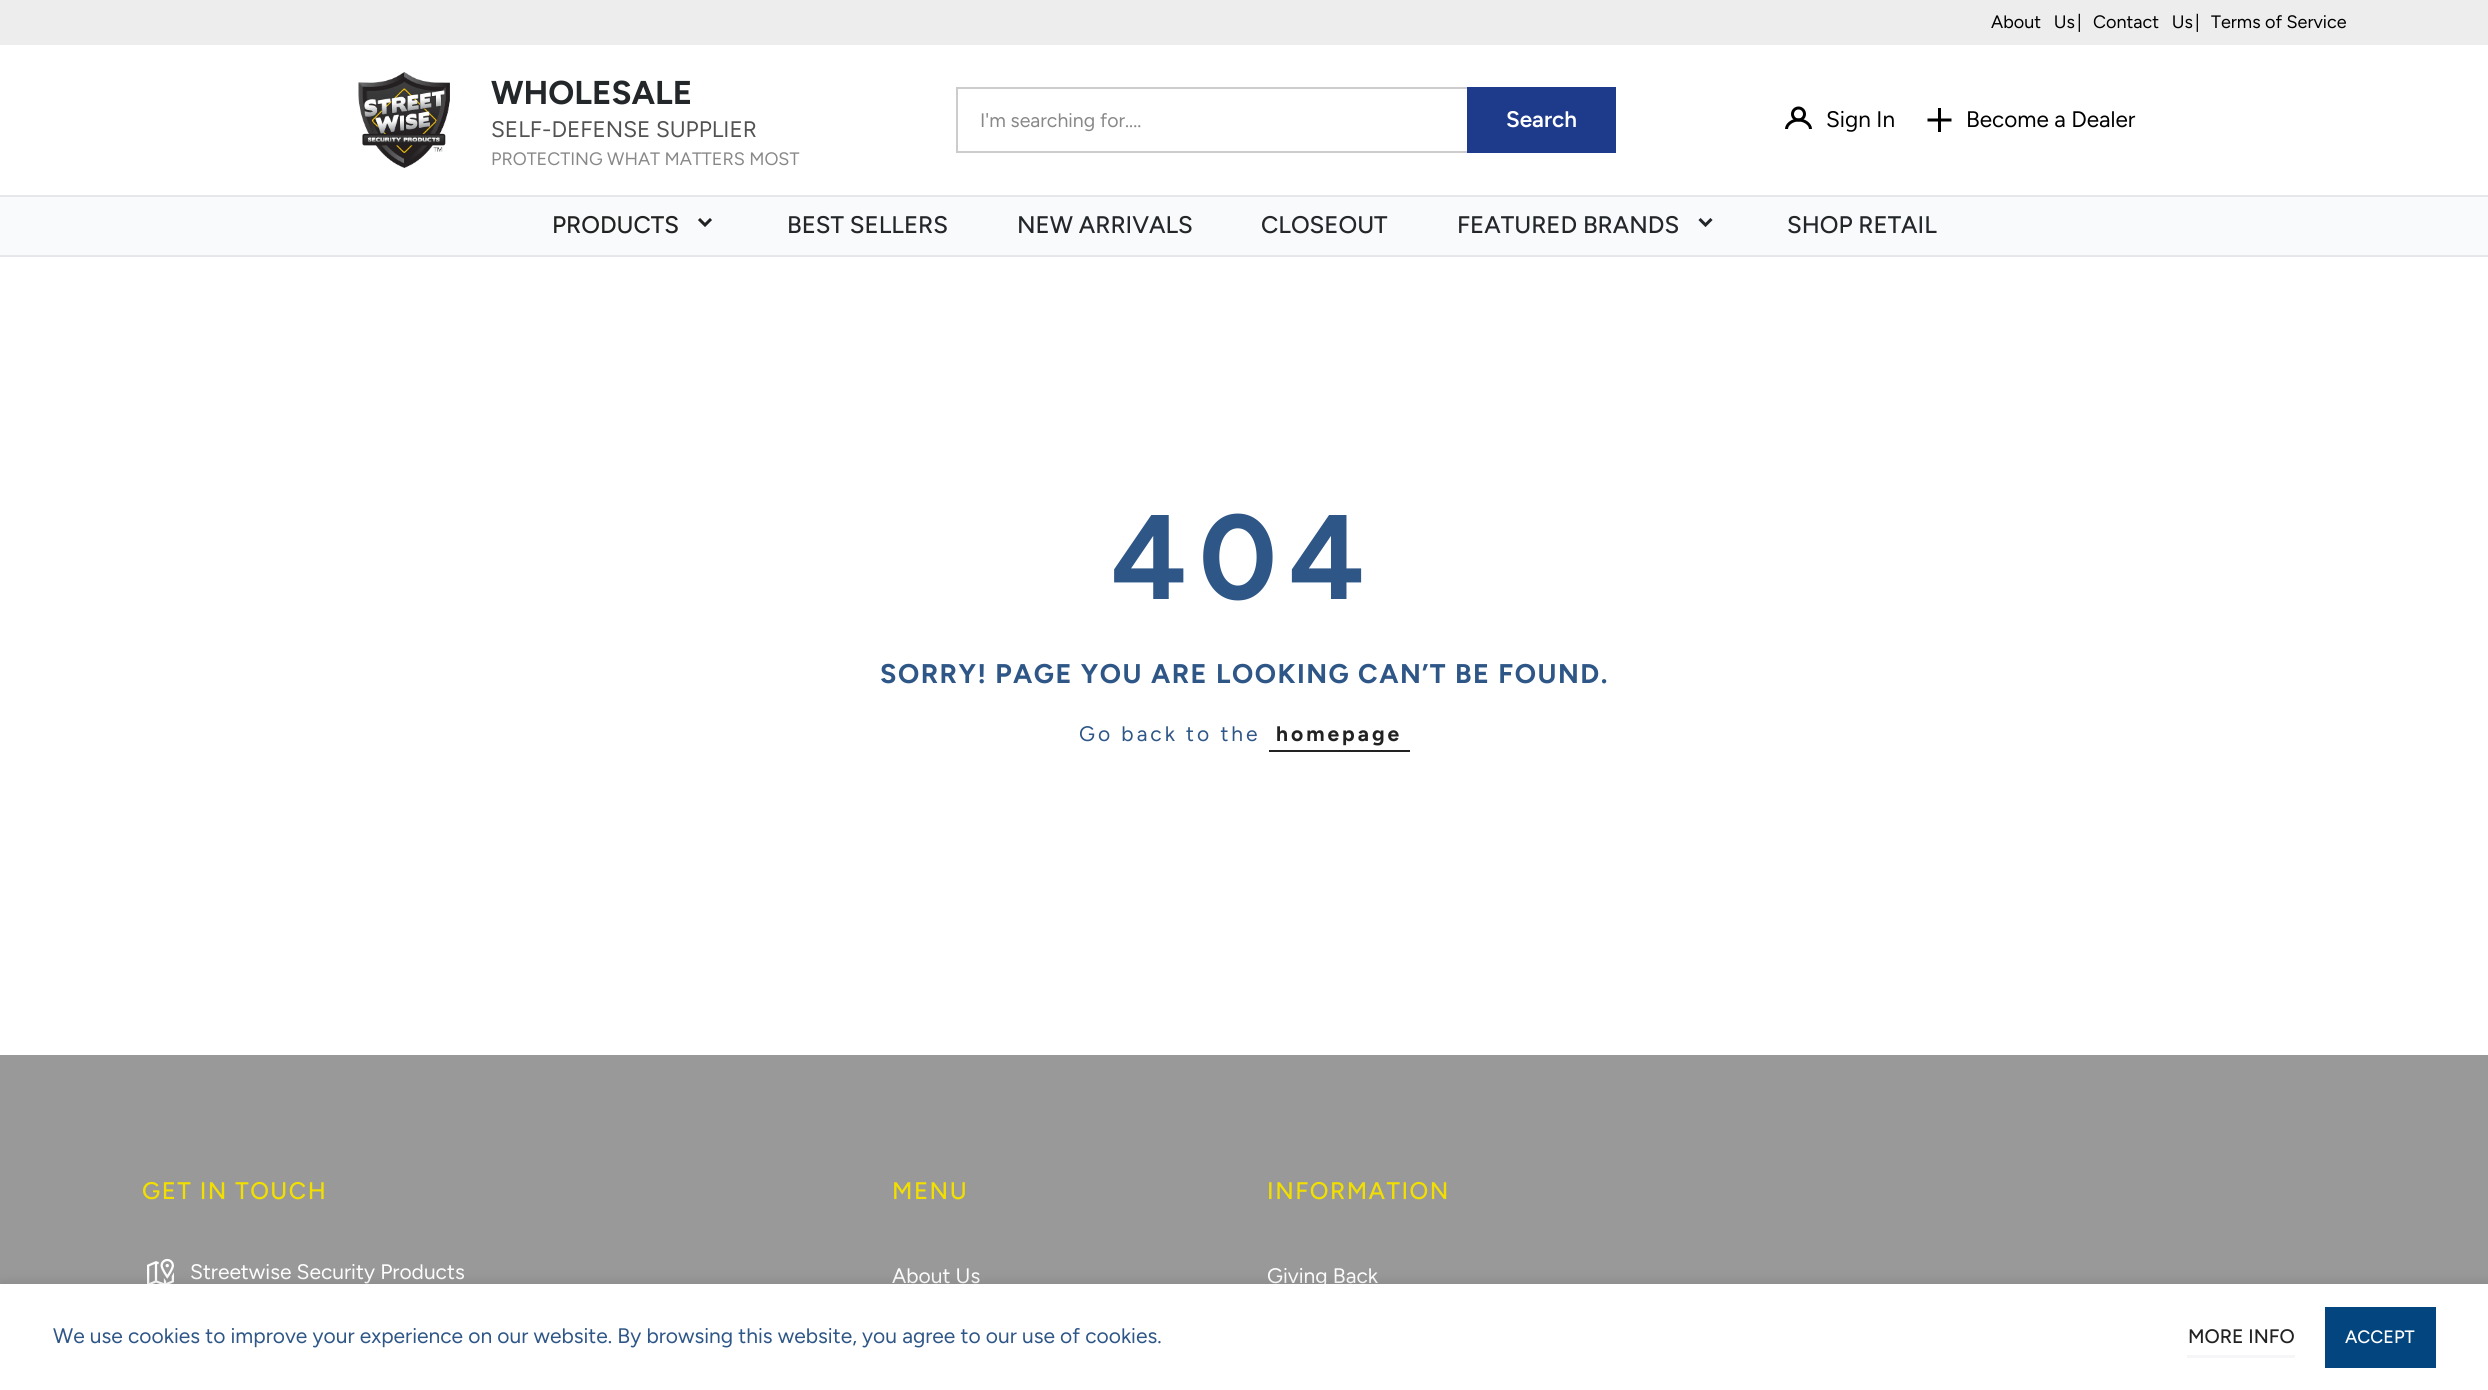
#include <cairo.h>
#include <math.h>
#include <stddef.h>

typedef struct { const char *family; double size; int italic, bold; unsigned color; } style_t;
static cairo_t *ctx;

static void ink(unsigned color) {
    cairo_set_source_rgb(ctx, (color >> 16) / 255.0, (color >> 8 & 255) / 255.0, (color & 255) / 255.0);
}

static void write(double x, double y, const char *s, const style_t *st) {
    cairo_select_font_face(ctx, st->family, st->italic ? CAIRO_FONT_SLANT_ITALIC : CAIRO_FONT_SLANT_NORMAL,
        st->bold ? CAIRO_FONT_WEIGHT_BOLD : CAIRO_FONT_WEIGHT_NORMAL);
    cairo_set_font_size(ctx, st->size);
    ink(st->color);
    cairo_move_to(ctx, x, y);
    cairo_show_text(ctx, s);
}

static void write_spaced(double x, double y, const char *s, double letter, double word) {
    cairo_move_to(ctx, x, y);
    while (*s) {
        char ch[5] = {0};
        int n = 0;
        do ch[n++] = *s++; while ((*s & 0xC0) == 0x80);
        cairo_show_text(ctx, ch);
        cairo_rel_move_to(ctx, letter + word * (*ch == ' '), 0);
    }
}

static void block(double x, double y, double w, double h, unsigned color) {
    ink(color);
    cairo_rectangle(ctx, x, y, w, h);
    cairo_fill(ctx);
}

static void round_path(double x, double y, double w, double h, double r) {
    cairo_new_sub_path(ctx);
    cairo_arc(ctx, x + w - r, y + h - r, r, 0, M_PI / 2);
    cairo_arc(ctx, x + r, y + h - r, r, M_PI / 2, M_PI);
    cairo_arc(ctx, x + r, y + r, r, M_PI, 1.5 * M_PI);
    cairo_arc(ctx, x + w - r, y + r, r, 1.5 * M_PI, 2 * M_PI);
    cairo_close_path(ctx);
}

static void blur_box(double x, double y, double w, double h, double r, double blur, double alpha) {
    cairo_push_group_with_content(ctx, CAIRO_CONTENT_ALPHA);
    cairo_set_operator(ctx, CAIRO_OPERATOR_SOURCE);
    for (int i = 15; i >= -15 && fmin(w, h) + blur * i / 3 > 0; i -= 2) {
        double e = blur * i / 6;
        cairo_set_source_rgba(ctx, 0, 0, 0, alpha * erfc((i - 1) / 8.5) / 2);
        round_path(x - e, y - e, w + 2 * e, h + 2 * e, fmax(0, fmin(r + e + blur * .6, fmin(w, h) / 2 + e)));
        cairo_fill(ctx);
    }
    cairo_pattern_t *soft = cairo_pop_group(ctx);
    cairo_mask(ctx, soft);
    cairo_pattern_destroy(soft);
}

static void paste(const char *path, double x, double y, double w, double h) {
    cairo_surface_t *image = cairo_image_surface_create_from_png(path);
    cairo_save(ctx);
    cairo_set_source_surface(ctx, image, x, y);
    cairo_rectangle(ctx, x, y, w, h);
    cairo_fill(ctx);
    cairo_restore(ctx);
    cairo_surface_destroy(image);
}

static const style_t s1 = {"Figtree", 18, 0, 0, 0x000000};
static const style_t s2 = {"Figtree", 33, 0, 1, 0x23272a};
static const style_t s3 = {"Figtree", 22.5, 0, 0, 0x525252};
static const style_t s4 = {"Figtree", 18, 0, 0, 0x888888};
static const style_t s5 = {"Figtree", 19.5, 0, 0, 0x888888};
static const style_t s6 = {"Figtree SemiBold", 22.5, 0, 0, 0xffffff};
static const style_t s7 = {"Figtree", 22.5, 0, 0, 0x000000};
static const style_t s8 = {"Figtree Medium", 24, 0, 0, 0x222222};
static const style_t s9 = {"Figtree Medium", 24, 0, 0, 0x23272a};
static const style_t s10 = {"Figtree", 21, 0, 0, 0xffffff};
static const style_t s11 = {"Figtree", 21, 0, 0, 0x2e5687};
static const style_t s12 = {"Figtree Medium", 19.5, 0, 0, 0x222222};
static const style_t s13 = {"Figtree Medium", 18, 0, 0, 0xffffff};

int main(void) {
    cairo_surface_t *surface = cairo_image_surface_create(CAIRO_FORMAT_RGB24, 2488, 1390);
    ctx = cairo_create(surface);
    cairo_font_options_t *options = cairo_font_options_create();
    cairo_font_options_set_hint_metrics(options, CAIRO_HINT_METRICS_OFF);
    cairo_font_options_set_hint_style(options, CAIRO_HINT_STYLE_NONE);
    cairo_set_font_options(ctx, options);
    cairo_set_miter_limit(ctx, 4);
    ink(0xffffff);
    cairo_paint(ctx);
    block(0, 0, 2488, 45, 0xededed);
    write(1991, 28, "About Us", &s1);
    write(2077, 28, "|", &s1);
    write(2093, 28, "Contact Us", &s1);
    write(2195, 28, "|", &s1);
    write(2211, 28, "Terms of Service", &s1);
    block(0, 195, 2488, 2, 0xe5e7eb);
    paste("pic1.png", 358, 72, 92, 96);
    write(491, 104, "WHOLESALE", &s2);
    write(491, 137, "SELF-DEFENSE SUPPLIER", &s3);
    write(491, 165, "PROTECTING WHAT MATTERS MOST", &s4);
    cairo_rectangle(ctx, 957, 88, 658, 64);
    ink(0xcccccc);
    cairo_stroke(ctx);
    write(980, 127, "I'm searching for....", &s5);
    block(1467, 87, 149, 66, 0x1e3a8a);
    write(1506, 127, "Search", &s6);
    cairo_new_path(ctx);
    cairo_arc(ctx, 1798.5, 114, 6, 0, 2 * M_PI);
    ink(0x000000);
    cairo_set_line_width(ctx, 3);
    cairo_stroke(ctx);
    cairo_new_path(ctx);
    cairo_move_to(ctx, 1786.5, 129);
    cairo_curve_to(ctx, 1786.5, 124.5, 1792, 120, 1798.5, 120);
    cairo_curve_to(ctx, 1805, 120, 1810.5, 124.5, 1810.5, 129);
    cairo_stroke(ctx);
    write(1826, 127, "Sign In", &s7);
    cairo_new_path(ctx);
    cairo_move_to(ctx, 1927.5, 120);
    cairo_line_to(ctx, 1951.5, 120);
    cairo_move_to(ctx, 1939.5, 108);
    cairo_line_to(ctx, 1939.5, 132);
    cairo_stroke(ctx);
    write(1966, 127, "Become a Dealer", &s7);
    block(0, 197, 2488, 58, 0xf9fafb);
    block(0, 255, 2488, 2, 0xe5e7eb);
    write(552, 233, "PRODUCTS", &s8);
    cairo_new_path(ctx);
    cairo_move_to(ctx, 699, 219);
    cairo_line_to(ctx, 705, 225);
    cairo_line_to(ctx, 711, 219);
    cairo_stroke(ctx);
    write(787, 233, "BEST SELLERS", &s9);
    write(1017, 233, "NEW ARRIVALS", &s9);
    write(1261, 233, "CLOSEOUT", &s9);
    write(1457, 233, "FEATURED BRANDS", &s9);
    cairo_new_path(ctx);
    cairo_move_to(ctx, 1699.5, 219);
    cairo_line_to(ctx, 1705.5, 225);
    cairo_line_to(ctx, 1711.5, 219);
    cairo_stroke(ctx);
    write(1787, 233, "SHOP RETAIL", &s9);
    cairo_select_font_face(ctx, "Figtree", CAIRO_FONT_SLANT_NORMAL, CAIRO_FONT_WEIGHT_BOLD);
    cairo_set_font_size(ctx, 120);
    ink(0x2e5687);
    write_spaced(1111, 599, "404", 12, 0);
    cairo_set_font_size(ctx, 27);
    write_spaced(880, 683, "SORRY! PAGE YOU ARE LOOKING CAN’T BE FOUND.", 1.5, 0);
    cairo_select_font_face(ctx, "Figtree", CAIRO_FONT_SLANT_NORMAL, CAIRO_FONT_WEIGHT_NORMAL);
    cairo_set_font_size(ctx, 21);
    write_spaced(1079, 741, "Go back to the", 3, 0);
    cairo_select_font_face(ctx, "Figtree", CAIRO_FONT_SLANT_NORMAL, CAIRO_FONT_WEIGHT_BOLD);
    ink(0x222222);
    write_spaced(1276, 741, "homepage", 3, 0);
    block(1269, 750, 141, 2, 0x222222);
    block(0, 1055, 2488, 229, 0x999999);
    cairo_select_font_face(ctx, "Figtree Medium", CAIRO_FONT_SLANT_NORMAL, CAIRO_FONT_WEIGHT_NORMAL);
    cairo_set_font_size(ctx, 24);
    ink(0xf2df00);
    write_spaced(142, 1199, "GET IN TOUCH", 1.5, 0);
    paste("pic2.png", 147, 1258, 27, 26);
    write(190, 1279, "Streetwise Security Products", &s10);
    cairo_select_font_face(ctx, "Figtree Medium", CAIRO_FONT_SLANT_NORMAL, CAIRO_FONT_WEIGHT_NORMAL);
    cairo_set_font_size(ctx, 24);
    ink(0xf2df00);
    write_spaced(892, 1199, "MENU", 1.5, 0);
    write(892, 1283, "About Us", &s10);
    cairo_select_font_face(ctx, "Figtree Medium", CAIRO_FONT_SLANT_NORMAL, CAIRO_FONT_WEIGHT_NORMAL);
    cairo_set_font_size(ctx, 24);
    ink(0xf2df00);
    write_spaced(1267, 1199, "INFORMATION", 1.5, 0);
    write(1267, 1283, "Giving Back", &s10);
    ink(0x000000);
    blur_box(0, 1284, 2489, 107, 0, 7, 0.14);
    block(0, 1284, 2488, 106, 0xffffff);
    write(53, 1343, "We use cookies to improve your experience on our website. By browsing this website, you agree to our use of cookies.", &s11);
    block(2187, 1355, 108, 3, 0xf6f6f8);
    write(2188, 1343, "MORE INFO", &s12);
    block(2325, 1307, 111, 61, 0x03467f);
    write(2345, 1343, "ACCEPT", &s13);
    cairo_surface_write_to_png(surface, "screenshot.png");
    cairo_font_options_destroy(options);
    cairo_destroy(ctx);
    cairo_surface_destroy(surface);
    return 0;
}
